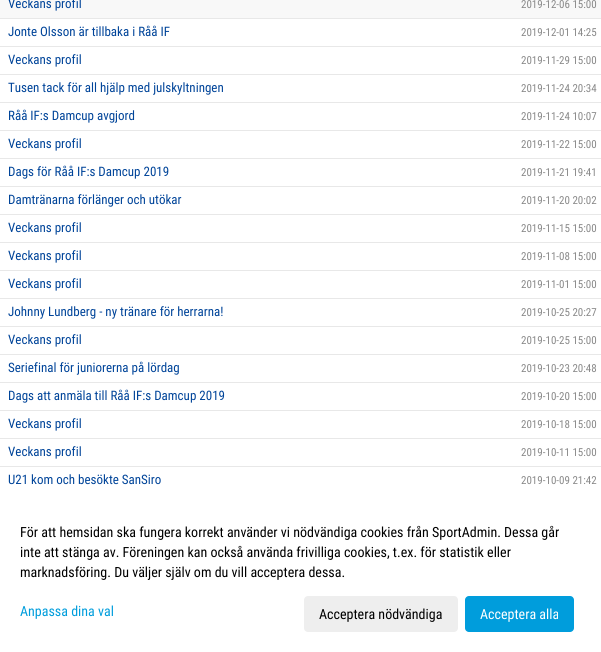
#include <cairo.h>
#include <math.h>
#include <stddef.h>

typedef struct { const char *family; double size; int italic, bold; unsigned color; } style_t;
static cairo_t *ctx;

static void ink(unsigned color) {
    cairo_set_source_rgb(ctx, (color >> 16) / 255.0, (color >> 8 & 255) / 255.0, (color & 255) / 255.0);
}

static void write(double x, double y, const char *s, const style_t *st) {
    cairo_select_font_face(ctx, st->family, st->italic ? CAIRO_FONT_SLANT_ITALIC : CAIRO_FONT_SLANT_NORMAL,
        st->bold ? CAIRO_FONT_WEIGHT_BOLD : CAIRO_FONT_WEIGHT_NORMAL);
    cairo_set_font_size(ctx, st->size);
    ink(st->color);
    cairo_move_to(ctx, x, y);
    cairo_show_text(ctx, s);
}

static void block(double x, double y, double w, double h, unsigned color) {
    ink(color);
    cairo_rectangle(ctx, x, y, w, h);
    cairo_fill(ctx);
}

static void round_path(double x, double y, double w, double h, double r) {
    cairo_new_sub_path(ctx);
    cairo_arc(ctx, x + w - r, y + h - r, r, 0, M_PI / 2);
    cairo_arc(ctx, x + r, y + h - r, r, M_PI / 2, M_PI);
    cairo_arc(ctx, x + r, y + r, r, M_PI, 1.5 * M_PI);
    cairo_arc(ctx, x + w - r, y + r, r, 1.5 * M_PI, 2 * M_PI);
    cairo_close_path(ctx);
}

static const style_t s1 = {"Roboto Condensed", 13, 0, 0, 0x004499};
static const style_t s2 = {"Roboto Condensed", 11, 0, 0, 0x888888};
static const style_t s3 = {"Roboto Condensed", 14, 0, 0, 0x000000};
static const style_t s4 = {"Roboto Condensed", 14, 0, 0, 0x009ddc};
static const style_t s5 = {"Roboto Condensed", 14, 0, 0, 0xffffff};

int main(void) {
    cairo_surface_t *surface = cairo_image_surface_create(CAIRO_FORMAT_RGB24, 601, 652);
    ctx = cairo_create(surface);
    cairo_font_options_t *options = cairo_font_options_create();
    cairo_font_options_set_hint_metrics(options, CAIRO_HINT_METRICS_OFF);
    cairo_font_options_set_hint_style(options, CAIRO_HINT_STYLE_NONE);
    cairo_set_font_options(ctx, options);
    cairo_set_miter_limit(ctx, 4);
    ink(0xffffff);
    cairo_paint(ctx);
    block(0, 0, 601, 18, 0xf8f8f8);
    write(8, 8, "Veckans profil", &s1);
    write(521, 8, "2019-12-06 15:00", &s2);
    block(0, 18, 601, 1, 0xe8e8e8);
    write(8, 36, "Jonte Olsson är tillbaka i Råå IF", &s1);
    write(521, 36, "2019-12-01 14:25", &s2);
    block(0, 46, 601, 1, 0xe8e8e8);
    write(8, 64, "Veckans profil", &s1);
    write(521, 64, "2019-11-29 15:00", &s2);
    block(0, 74, 601, 1, 0xe8e8e8);
    write(8, 92, "Tusen tack för all hjälp med julskyltningen", &s1);
    write(521, 92, "2019-11-24 20:34", &s2);
    block(0, 102, 601, 1, 0xe8e8e8);
    write(8, 120, "Råå IF:s Damcup avgjord", &s1);
    write(521, 120, "2019-11-24 10:07", &s2);
    block(0, 130, 601, 1, 0xe8e8e8);
    write(8, 148, "Veckans profil", &s1);
    write(521, 148, "2019-11-22 15:00", &s2);
    block(0, 158, 601, 1, 0xe8e8e8);
    write(8, 176, "Dags för Råå IF:s Damcup 2019", &s1);
    write(521, 176, "2019-11-21 19:41", &s2);
    block(0, 186, 601, 1, 0xe8e8e8);
    write(8, 204, "Damtränarna förlänger och utökar", &s1);
    write(521, 204, "2019-11-20 20:02", &s2);
    block(0, 214, 601, 1, 0xe8e8e8);
    write(8, 232, "Veckans profil", &s1);
    write(521, 232, "2019-11-15 15:00", &s2);
    block(0, 242, 601, 1, 0xe8e8e8);
    write(8, 260, "Veckans profil", &s1);
    write(521, 260, "2019-11-08 15:00", &s2);
    block(0, 270, 601, 1, 0xe8e8e8);
    write(8, 288, "Veckans profil", &s1);
    write(521, 288, "2019-11-01 15:00", &s2);
    block(0, 298, 601, 1, 0xe8e8e8);
    write(8, 316, "Johnny Lundberg - ny tränare för herrarna!", &s1);
    write(521, 316, "2019-10-25 20:27", &s2);
    block(0, 326, 601, 1, 0xe8e8e8);
    write(8, 344, "Veckans profil", &s1);
    write(521, 344, "2019-10-25 15:00", &s2);
    block(0, 354, 601, 1, 0xe8e8e8);
    write(8, 372, "Seriefinal för juniorerna på lördag", &s1);
    write(521, 372, "2019-10-23 20:48", &s2);
    block(0, 382, 601, 1, 0xe8e8e8);
    write(8, 400, "Dags att anmäla till Råå IF:s Damcup 2019", &s1);
    write(521, 400, "2019-10-20 15:00", &s2);
    block(0, 410, 601, 1, 0xe8e8e8);
    write(8, 428, "Veckans profil", &s1);
    write(521, 428, "2019-10-18 15:00", &s2);
    block(0, 438, 601, 1, 0xe8e8e8);
    write(8, 456, "Veckans profil", &s1);
    write(521, 456, "2019-10-11 15:00", &s2);
    block(0, 466, 601, 1, 0xe8e8e8);
    write(8, 484, "U21 kom och besökte SanSiro", &s1);
    write(521, 484, "2019-10-09 21:42", &s2);
    write(20, 537, "För att hemsidan ska fungera korrekt använder vi nödvändiga cookies från SportAdmin. Dessa går", &s3);
    write(20, 557, "inte att stänga av. Föreningen kan också använda frivilliga cookies, t.ex. för statistik eller", &s3);
    write(20, 577, "marknadsföring. Du väljer själv om du vill acceptera dessa.", &s3);
    write(20, 616, "Anpassa dina val", &s4);
    ink(0xeeeeee);
    round_path(304, 596, 154, 36, 4);
    cairo_fill(ctx);
    write(319, 619, "Acceptera nödvändiga", &s3);
    ink(0x009ddc);
    round_path(465, 596, 109, 36, 4);
    cairo_fill(ctx);
    write(480, 619, "Acceptera alla", &s5);
    cairo_surface_write_to_png(surface, "screenshot.png");
    cairo_font_options_destroy(options);
    cairo_destroy(ctx);
    cairo_surface_destroy(surface);
    return 0;
}
